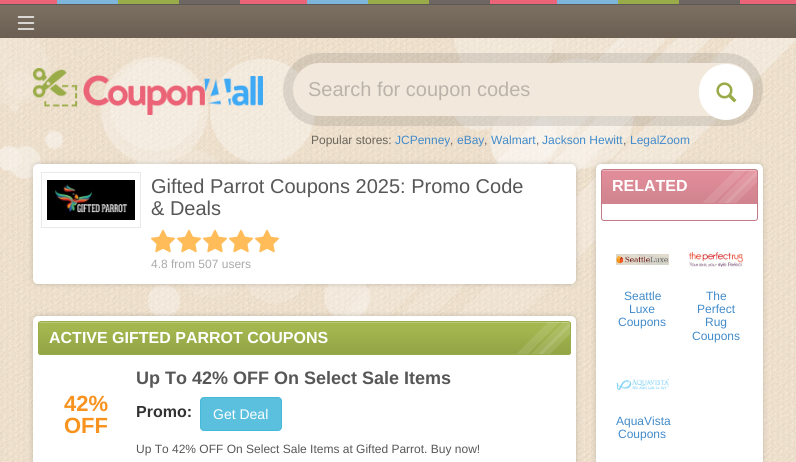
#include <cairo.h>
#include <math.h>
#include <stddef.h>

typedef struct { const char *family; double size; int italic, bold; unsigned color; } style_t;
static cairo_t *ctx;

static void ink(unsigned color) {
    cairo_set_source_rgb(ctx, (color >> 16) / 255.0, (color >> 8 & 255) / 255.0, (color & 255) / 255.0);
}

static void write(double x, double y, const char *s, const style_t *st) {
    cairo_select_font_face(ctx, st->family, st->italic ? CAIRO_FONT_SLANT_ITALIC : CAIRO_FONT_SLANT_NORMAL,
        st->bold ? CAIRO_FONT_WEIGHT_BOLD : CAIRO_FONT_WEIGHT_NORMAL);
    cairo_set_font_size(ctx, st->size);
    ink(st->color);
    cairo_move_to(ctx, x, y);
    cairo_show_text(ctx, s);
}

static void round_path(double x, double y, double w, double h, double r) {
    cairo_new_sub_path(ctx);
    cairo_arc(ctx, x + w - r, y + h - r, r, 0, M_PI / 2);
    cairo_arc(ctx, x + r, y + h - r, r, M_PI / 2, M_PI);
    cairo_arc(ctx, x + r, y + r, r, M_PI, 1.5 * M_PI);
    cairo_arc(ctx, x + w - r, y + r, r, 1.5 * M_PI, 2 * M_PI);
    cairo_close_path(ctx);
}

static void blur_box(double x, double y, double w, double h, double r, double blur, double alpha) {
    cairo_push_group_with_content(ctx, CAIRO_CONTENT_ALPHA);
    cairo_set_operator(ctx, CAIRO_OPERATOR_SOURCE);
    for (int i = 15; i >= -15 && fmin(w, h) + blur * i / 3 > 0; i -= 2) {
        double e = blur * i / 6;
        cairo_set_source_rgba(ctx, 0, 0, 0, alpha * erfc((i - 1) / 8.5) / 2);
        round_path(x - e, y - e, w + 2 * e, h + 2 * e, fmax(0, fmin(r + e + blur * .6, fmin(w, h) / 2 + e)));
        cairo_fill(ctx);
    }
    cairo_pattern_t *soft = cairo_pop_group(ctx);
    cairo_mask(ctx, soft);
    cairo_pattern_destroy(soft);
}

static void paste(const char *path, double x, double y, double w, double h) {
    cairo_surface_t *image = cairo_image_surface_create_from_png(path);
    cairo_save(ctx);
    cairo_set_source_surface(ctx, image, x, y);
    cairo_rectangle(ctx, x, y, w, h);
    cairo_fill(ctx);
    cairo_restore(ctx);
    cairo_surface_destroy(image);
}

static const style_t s1 = {"Liberation Sans", 20, 0, 0, 0xbbb3a9};
static const style_t s2 = {"Liberation Sans", 12, 0, 0, 0x6b655c};
static const style_t s3 = {"Liberation Sans", 12, 0, 0, 0x428bca};
static const style_t s4 = {"Liberation Sans", 20, 0, 0, 0x575757};
static const style_t s5 = {"Liberation Sans", 12, 0, 0, 0xaaaaaa};
static const style_t s6 = {"Liberation Sans", 16, 0, 1, 0xffffff};
static const style_t s7 = {"Liberation Sans", 22, 0, 1, 0xf7931e};
static const style_t s8 = {"Liberation Sans", 18, 0, 1, 0x575757};
static const style_t s9 = {"Liberation Sans", 16, 0, 1, 0x333333};
static const style_t s10 = {"Liberation Sans", 14, 0, 0, 0xffffff};
static const style_t s11 = {"Liberation Sans", 12, 0, 0, 0x575757};

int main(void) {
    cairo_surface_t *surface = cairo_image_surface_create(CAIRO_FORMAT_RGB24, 796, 462);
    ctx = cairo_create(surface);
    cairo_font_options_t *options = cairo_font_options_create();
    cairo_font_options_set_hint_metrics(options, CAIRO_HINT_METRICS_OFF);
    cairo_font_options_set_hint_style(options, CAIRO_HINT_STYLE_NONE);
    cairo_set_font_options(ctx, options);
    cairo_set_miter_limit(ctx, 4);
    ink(0xffffff);
    cairo_paint(ctx);
    paste("pic1.png", 0, 38, 796, 424);
    paste("pic2.png", 0, 38, 796, 278);
    paste("pic3.png", 0, 0, 796, 38);
    paste("pic4.png", 17, 16, 18, 14);
    paste("pic5.png", 33, 68, 230, 47);
    paste("pic6.png", 283, 53, 480, 73);
    ink(0xf2e9dc);
    round_path(293, 63, 460, 53, 26.5);
    cairo_fill(ctx);
    write(308, 96, "Search for coupon codes", &s1);
    ink(0xffffff);
    round_path(699, 64, 54, 56, 27);
    cairo_fill(ctx);
    paste("pic7.png", 716, 82, 21, 21);
    write(311, 144, "Popular stores:", &s2);
    write(395, 144, "JCPenney", &s3);
    write(450, 144, ",", &s2);
    write(457, 144, "eBay", &s3);
    write(484, 144, ",", &s2);
    write(491, 144, "Walmart", &s3);
    write(536, 144, ",", &s2);
    write(542, 144, "Jackson Hewitt", &s3);
    write(623, 144, ",", &s2);
    write(630, 144, "LegalZoom", &s3);
    ink(0x000000);
    blur_box(33, 164, 543, 120, 5, 2.5, 0.2);
    ink(0xffffff);
    round_path(33, 164, 543, 120, 5);
    cairo_fill(ctx);
    cairo_rectangle(ctx, 41.5, 172.5, 99, 55);
    ink(0xe9e9e9);
    cairo_set_line_width(ctx, 1);
    cairo_stroke(ctx);
    paste("pic8.png", 47, 180, 88, 40);
    write(151, 193, "Gifted Parrot Coupons 2025: Promo Code", &s4);
    write(151, 215, "& Deals", &s4);
    paste("pic9.png", 151, 229, 24, 24);
    paste("pic9.png", 177, 229, 24, 24);
    paste("pic9.png", 203, 229, 24, 24);
    paste("pic9.png", 229, 229, 24, 24);
    paste("pic9.png", 255, 229, 24, 24);
    write(151, 268, "4.8 from 507 users", &s5);
    ink(0x000000);
    blur_box(596, 164, 167, 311, 5, 2.5, 0.2);
    ink(0xffffff);
    round_path(596, 164, 167, 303, 5);
    cairo_fill(ctx);
    paste("pic10.png", 601, 170, 157, 34);
    round_path(601.5, 169.5, 156, 51, 2.5);
    ink(0xc37a84);
    cairo_stroke(ctx);
    write(612, 191, "RELATED", &s6);
    paste("pic11.png", 703, 170, 54, 33);
    paste("pic12.png", 616, 254, 53, 11);
    write(624, 300, "Seattle", &s3);
    write(629, 313, "Luxe", &s3);
    write(618, 326, "Coupons", &s3);
    paste("pic13.png", 689, 252, 54, 15);
    write(706, 300, "The", &s3);
    write(697, 313, "Perfect", &s3);
    write(705, 326, "Rug", &s3);
    write(692, 340, "Coupons", &s3);
    paste("pic14.png", 616, 379, 53, 11);
    write(616, 425, "AquaVista", &s3);
    write(618, 438, "Coupons", &s3);
    ink(0x000000);
    blur_box(33, 316, 543, 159, 5, 2.5, 0.2);
    ink(0xffffff);
    round_path(33, 316, 543, 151, 5);
    cairo_fill(ctx);
    paste("pic15.png", 38, 322, 533, 33);
    round_path(38.5, 321.5, 532, 33, 2.5);
    ink(0x9aac49);
    cairo_stroke(ctx);
    paste("pic16.png", 516, 322, 54, 32);
    write(49, 343, "ACTIVE GIFTED PARROT COUPONS", &s6);
    write(64, 411, "42%", &s7);
    write(64, 433, "OFF", &s7);
    write(136, 384, "Up To 42% OFF On Select Sale Items", &s8);
    write(136, 417, "Promo:", &s9);
    ink(0x5bc0de);
    round_path(200.5, 397.5, 81, 33, 3.5);
    cairo_fill_preserve(ctx);
    ink(0x46b8da);
    cairo_stroke(ctx);
    write(213, 419, "Get Deal", &s10);
    write(136, 453, "Up To 42% OFF On Select Sale Items at Gifted Parrot. Buy now!", &s11);
    cairo_surface_write_to_png(surface, "screenshot.png");
    cairo_font_options_destroy(options);
    cairo_destroy(ctx);
    cairo_surface_destroy(surface);
    return 0;
}
